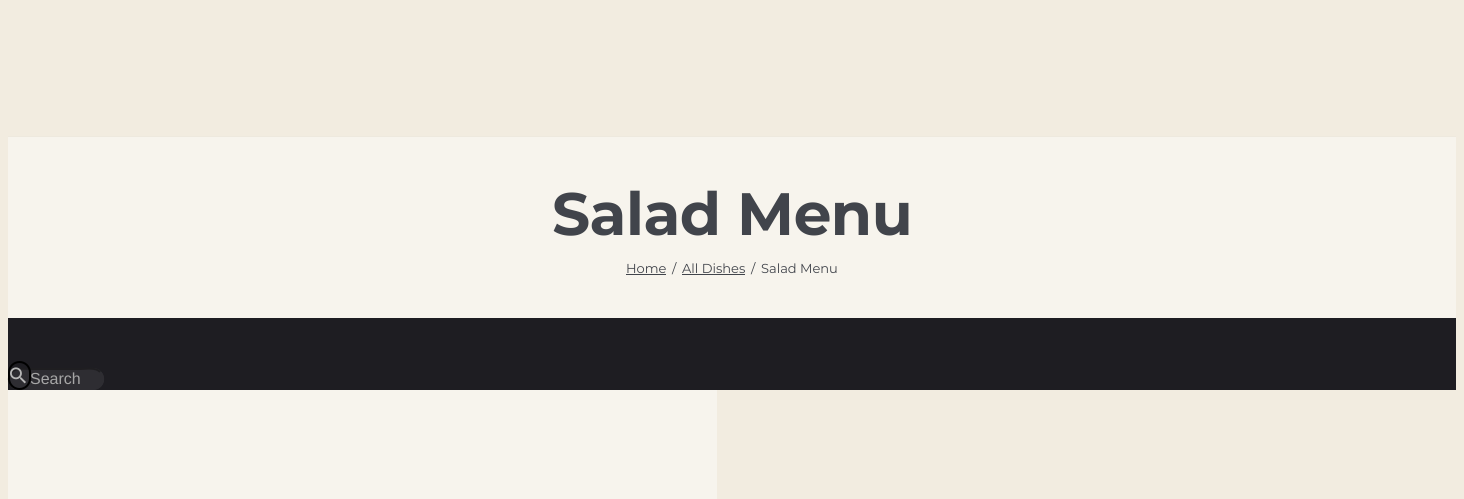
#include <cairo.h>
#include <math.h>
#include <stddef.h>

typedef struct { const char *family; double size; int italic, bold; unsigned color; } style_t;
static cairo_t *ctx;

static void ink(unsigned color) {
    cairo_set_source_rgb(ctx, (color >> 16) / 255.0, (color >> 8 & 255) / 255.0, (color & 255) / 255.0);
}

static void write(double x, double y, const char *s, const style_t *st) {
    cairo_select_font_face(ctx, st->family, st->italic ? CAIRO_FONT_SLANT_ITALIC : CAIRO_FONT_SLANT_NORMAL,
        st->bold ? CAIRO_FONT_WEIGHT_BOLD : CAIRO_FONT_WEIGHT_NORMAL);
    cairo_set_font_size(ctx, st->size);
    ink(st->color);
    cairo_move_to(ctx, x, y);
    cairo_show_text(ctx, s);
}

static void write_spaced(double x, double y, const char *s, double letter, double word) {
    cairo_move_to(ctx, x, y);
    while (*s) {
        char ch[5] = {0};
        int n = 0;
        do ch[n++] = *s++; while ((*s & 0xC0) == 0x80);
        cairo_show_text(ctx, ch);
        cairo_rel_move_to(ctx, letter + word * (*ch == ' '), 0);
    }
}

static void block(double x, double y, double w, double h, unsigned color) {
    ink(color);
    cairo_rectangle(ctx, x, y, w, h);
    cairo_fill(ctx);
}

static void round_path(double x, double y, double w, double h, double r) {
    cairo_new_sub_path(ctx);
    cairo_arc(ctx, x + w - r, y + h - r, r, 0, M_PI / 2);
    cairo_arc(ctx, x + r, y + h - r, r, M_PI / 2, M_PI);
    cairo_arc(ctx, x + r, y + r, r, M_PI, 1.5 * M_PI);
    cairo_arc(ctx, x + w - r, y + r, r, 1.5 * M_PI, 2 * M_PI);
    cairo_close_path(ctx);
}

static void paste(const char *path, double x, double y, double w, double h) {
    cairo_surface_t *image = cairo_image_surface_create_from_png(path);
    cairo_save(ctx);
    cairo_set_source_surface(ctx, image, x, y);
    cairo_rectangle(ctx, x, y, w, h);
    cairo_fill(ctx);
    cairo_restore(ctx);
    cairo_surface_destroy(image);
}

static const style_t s1 = {"Montserrat", 13, 0, 0, 0x41444b};
static const style_t s2 = {"Liberation Sans", 16, 0, 0, 0xa6a6a6};

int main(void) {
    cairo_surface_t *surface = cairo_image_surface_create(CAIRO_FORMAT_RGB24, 1464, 499);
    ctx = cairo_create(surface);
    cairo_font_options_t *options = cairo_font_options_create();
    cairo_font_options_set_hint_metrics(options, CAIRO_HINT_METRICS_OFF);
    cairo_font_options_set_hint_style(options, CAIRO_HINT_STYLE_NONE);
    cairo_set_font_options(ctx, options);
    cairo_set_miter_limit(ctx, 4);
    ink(0xf2ece0);
    cairo_paint(ctx);
    block(8, 136, 1448, 1, 0xeee9de);
    block(8, 137, 1448, 181, 0xf7f4ed);
    cairo_select_font_face(ctx, "Montserrat", CAIRO_FONT_SLANT_NORMAL, CAIRO_FONT_WEIGHT_BOLD);
    cairo_set_font_size(ctx, 59.75);
    ink(0x41444b);
    write_spaced(552, 235, "Salad Menu", -0.5, 0);
    write(626, 273, "Home", &s1);
    block(626, 274, 40, 1, 0x41444b);
    write(672, 273, "/", &s1);
    write(682, 273, "All Dishes", &s1);
    block(682, 274, 63, 1, 0x41444b);
    write(751, 273, "/", &s1);
    write(761, 273, "Salad Menu", &s1);
    block(8, 318, 1448, 72, 0x1e1d22);
    ink(0x2e2d32);
    round_path(8, 368, 96, 22, 11);
    cairo_fill(ctx);
    cairo_new_path(ctx);
    cairo_move_to(ctx, 100, 372);
    cairo_curve_to(ctx, 102.5, 374.5, 103.5, 377.5, 103, 381);
    cairo_curve_to(ctx, 100.5, 391.5, 88, 389, 80.5, 389);
    cairo_line_to(ctx, 31.5, 389);
    cairo_curve_to(ctx, 26, 389, 16.5, 391, 12, 386);
    cairo_stroke(ctx);
    cairo_new_path(ctx);
    cairo_move_to(ctx, 12, 386);
    cairo_curve_to(ctx, 9.5, 383.5, 8.5, 380.5, 9, 377);
    cairo_curve_to(ctx, 11.5, 366.5, 24, 369, 31.5, 369);
    cairo_line_to(ctx, 80.5, 369);
    cairo_curve_to(ctx, 86, 369, 95.5, 367, 100, 372);
    ink(0x1f1e21);
    cairo_stroke(ctx);
    write(30, 384, "Search", &s2);
    round_path(9, 362, 21, 27, 10.5);
    ink(0x000000);
    cairo_stroke(ctx);
    paste("pic1.png", 10, 367, 16, 17);
    block(8, 390, 709, 109, 0xf7f4ed);
    cairo_surface_write_to_png(surface, "screenshot.png");
    cairo_font_options_destroy(options);
    cairo_destroy(ctx);
    cairo_surface_destroy(surface);
    return 0;
}
